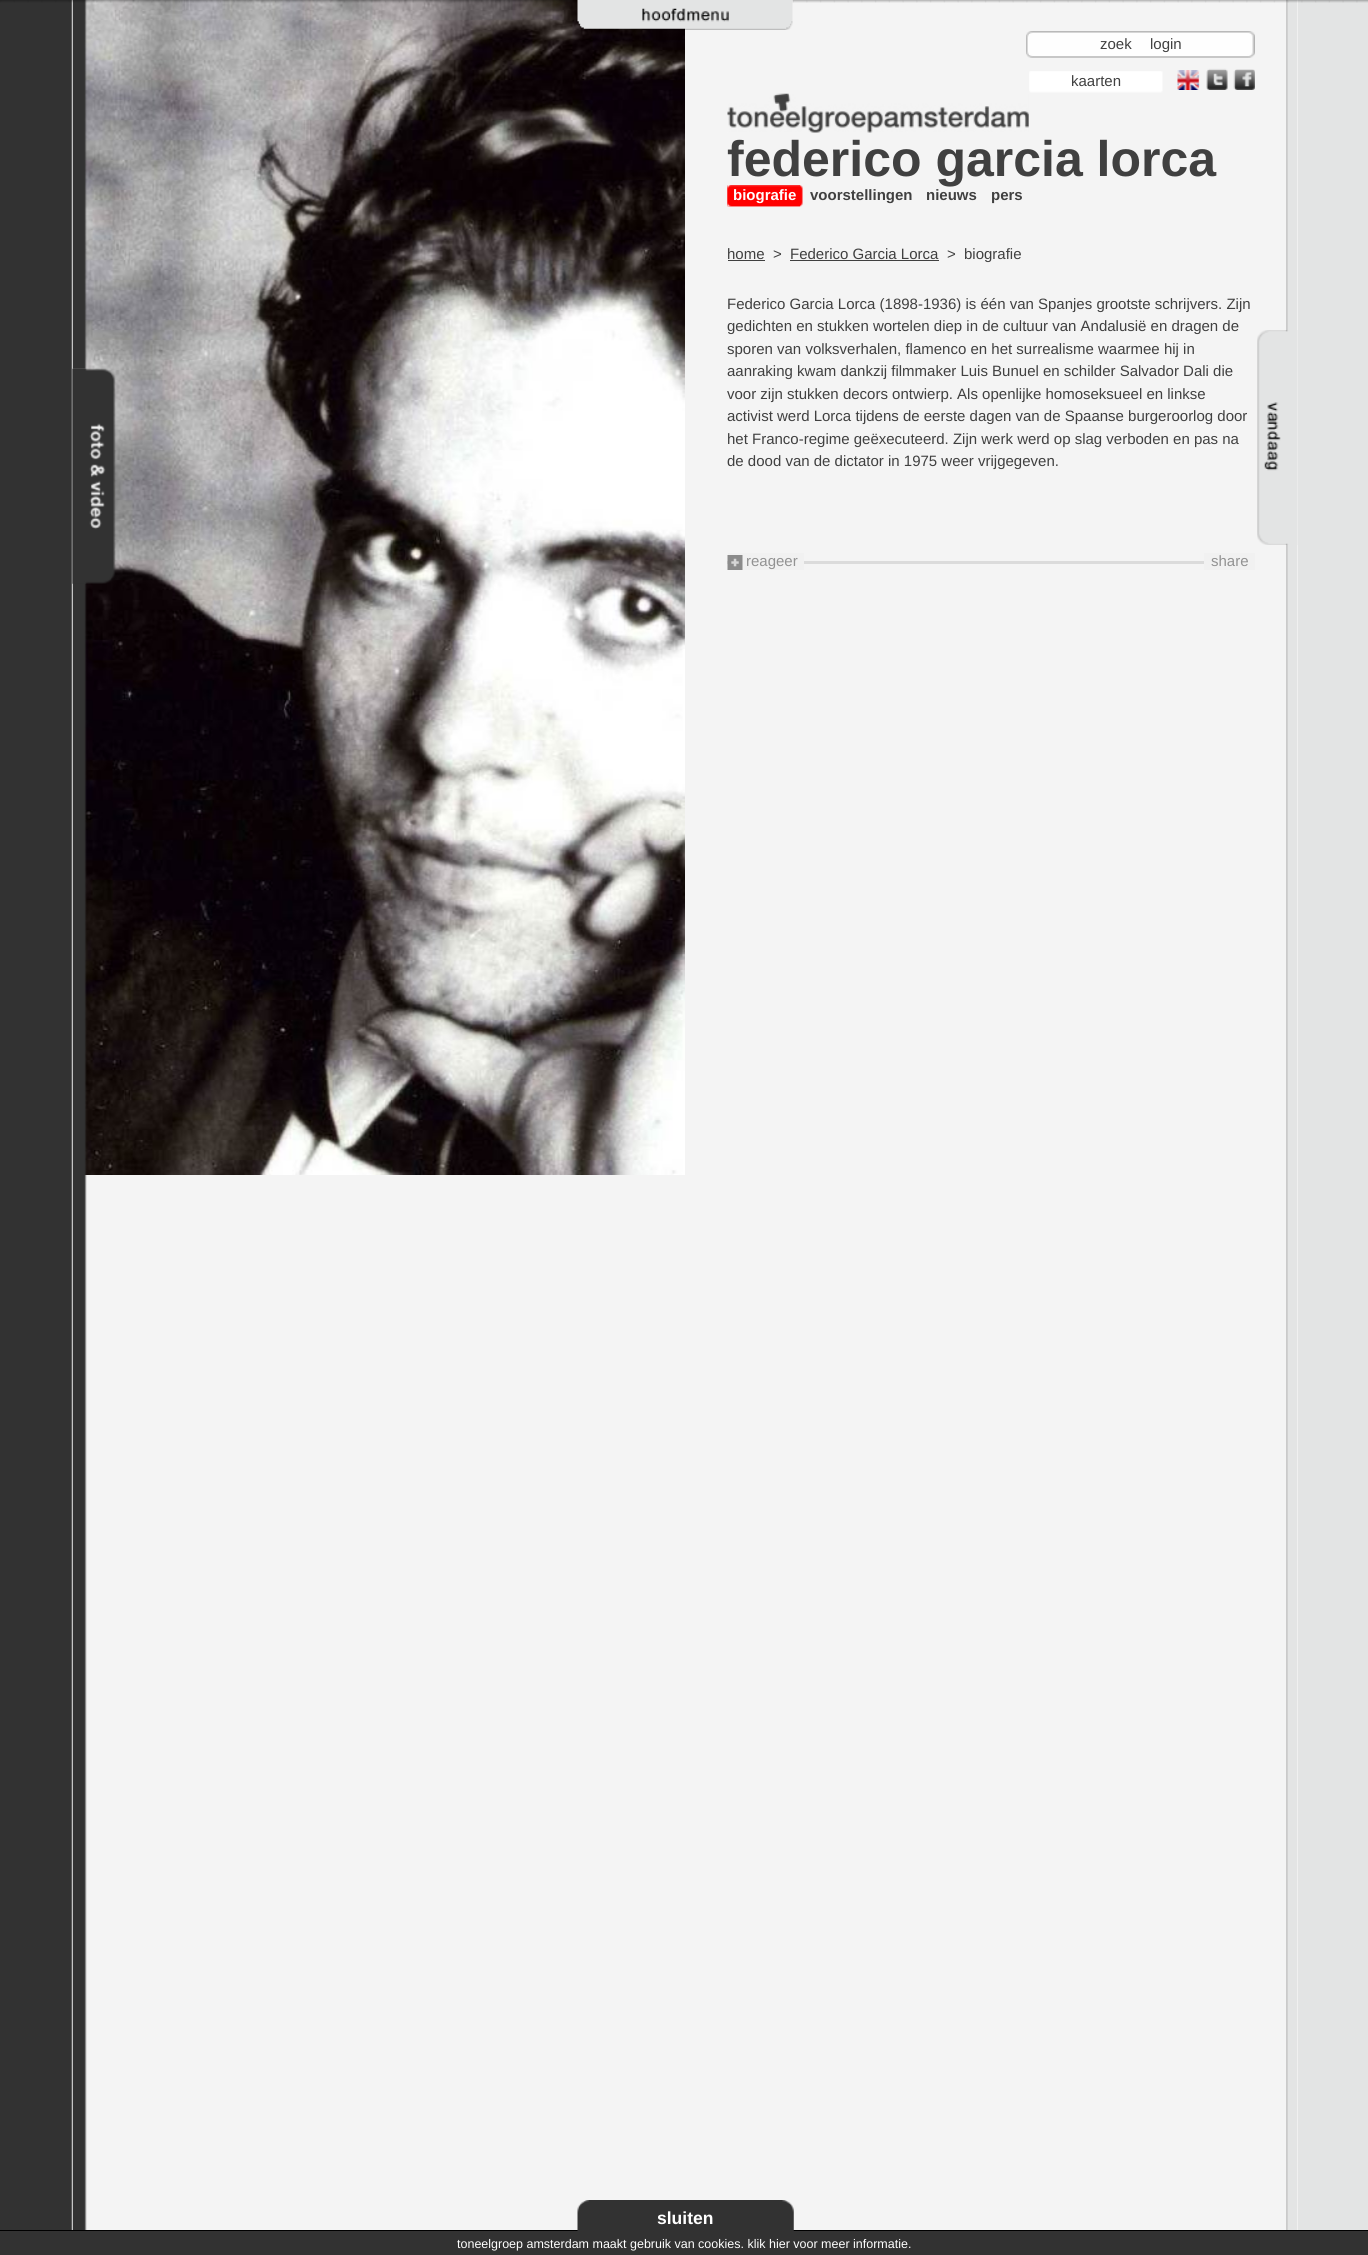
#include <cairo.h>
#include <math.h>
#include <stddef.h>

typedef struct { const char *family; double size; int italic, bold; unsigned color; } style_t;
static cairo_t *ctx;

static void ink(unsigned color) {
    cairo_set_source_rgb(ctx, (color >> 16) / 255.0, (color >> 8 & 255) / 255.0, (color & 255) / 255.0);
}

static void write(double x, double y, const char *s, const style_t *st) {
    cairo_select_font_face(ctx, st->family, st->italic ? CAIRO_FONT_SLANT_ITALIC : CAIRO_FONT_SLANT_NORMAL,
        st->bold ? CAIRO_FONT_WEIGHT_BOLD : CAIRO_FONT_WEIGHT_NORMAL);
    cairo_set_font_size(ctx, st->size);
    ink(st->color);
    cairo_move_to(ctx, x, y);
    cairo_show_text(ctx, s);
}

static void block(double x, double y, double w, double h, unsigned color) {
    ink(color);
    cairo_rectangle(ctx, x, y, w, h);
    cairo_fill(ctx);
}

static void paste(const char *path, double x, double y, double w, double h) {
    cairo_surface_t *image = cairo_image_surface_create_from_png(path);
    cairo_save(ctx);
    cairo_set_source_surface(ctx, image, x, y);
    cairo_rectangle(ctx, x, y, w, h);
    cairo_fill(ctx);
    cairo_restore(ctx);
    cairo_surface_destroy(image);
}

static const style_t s1 = {"Liberation Sans", 15, 0, 0, 0x404040};
static const style_t s2 = {"Liberation Sans", 50, 0, 1, 0x404040};
static const style_t s3 = {"Liberation Sans", 15, 0, 1, 0xffffff};
static const style_t s4 = {"Liberation Sans", 15, 0, 1, 0x404040};
static const style_t s5 = {"Liberation Sans", 15, 0, 0, 0x929292};
static const style_t s6 = {"Liberation Sans", 17.5, 0, 1, 0xffffff};
static const style_t s7 = {"Liberation Sans", 12.5, 0, 0, 0xffffff};

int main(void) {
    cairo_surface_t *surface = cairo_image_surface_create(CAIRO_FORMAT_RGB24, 1368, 2255);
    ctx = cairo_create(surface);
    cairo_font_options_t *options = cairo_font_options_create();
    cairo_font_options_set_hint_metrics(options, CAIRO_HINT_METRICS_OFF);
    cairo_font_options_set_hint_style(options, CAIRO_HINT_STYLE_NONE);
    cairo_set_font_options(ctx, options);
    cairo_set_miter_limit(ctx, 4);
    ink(0x323232);
    cairo_paint(ctx);
    paste("pic1.png", 71, 0, 1297, 2230);
    paste("pic8.png", 73, 0, 612, 1175);
    paste("pic5.png", 72, 0, 15, 369);
    paste("pic2.png", 0, 0, 574, 3);
    block(1296, 0, 2, 2230, 0xf4f4f4);
    paste("pic19.png", 1286, 0, 12, 330);
    paste("pic4.png", 792, 0, 576, 3);
    paste("pic3.png", 577, 0, 216, 30);
    paste("pic6.png", 72, 368, 15, 1862);
    paste("pic7.png", 72, 368, 44, 216);
    paste("pic9.png", 1026, 31, 229, 27);
    paste("pic10.png", 1026, 31, 229, 27);
    write(1100, 49, "zoek", &s1);
    write(1150, 49, "login", &s1);
    paste("pic11.png", 1029, 71, 134, 22);
    write(1071, 86, "kaarten", &s1);
    paste("pic12.png", 1177, 70, 23, 20);
    paste("pic13.png", 1206, 68, 22, 22);
    paste("pic14.png", 1233, 69, 22, 21);
    paste("pic15.png", 727, 93, 302, 40);
    paste("pic16.png", 727, 185, 76, 22);
    paste("pic17.png", 727, 185, 73, 22);
    write(727, 176, "federico garcia lorca", &s2);
    write(733, 200, "biografie", &s3);
    write(810, 200, "voorstellingen", &s4);
    write(926, 200, "nieuws", &s4);
    write(991, 200, "pers", &s4);
    write(727, 259, "home", &s1);
    block(728, 260, 37, 1, 0x404040);
    write(773, 259, ">", &s1);
    write(790, 259, "Federico Garcia Lorca", &s1);
    block(790, 260, 149, 1, 0x404040);
    write(947, 259, ">", &s1);
    write(964, 259, "biografie", &s1);
    write(727, 309, "Federico Garcia Lorca (1898-1936) is één van Spanjes grootste schrijvers. Zijn", &s1);
    write(727, 331, "gedichten en stukken wortelen diep in de cultuur van Andalusië en dragen de", &s1);
    write(727, 354, "sporen van volksverhalen, flamenco en het surrealisme waarmee hij in", &s1);
    write(727, 376, "aanraking kwam dankzij filmmaker Luis Bunuel en schilder Salvador Dali die", &s1);
    write(727, 399, "voor zijn stukken decors ontwierp. Als openlijke homoseksueel en linkse", &s1);
    write(727, 421, "activist werd Lorca tijdens de eerste dagen van de Spaanse burgeroorlog door", &s1);
    write(727, 444, "het Franco-regime geëxecuteerd. Zijn werk werd op slag verboden en pas na", &s1);
    write(727, 466, "de dood van de dictator in 1975 weer vrijgegeven.", &s1);
    block(727, 561, 477, 3, 0xdbdbdb);
    block(728, 553, 76, 17, 0xf1f1f1);
    paste("pic18.png", 727, 555, 16, 15);
    write(746, 566, "reageer", &s5);
    block(1204, 553, 51, 17, 0xf1f1f1);
    write(1211, 566, "share", &s5);
    paste("pic21.png", 1286, 330, 12, 1900);
    paste("pic20.png", 1257, 330, 41, 215);
    block(0, 2230, 1368, 1, 0x000000);
    paste("pic22.png", 577, 2200, 217, 31);
    write(657, 2224, "sluiten", &s6);
    write(457, 2248, "toneelgroep amsterdam maakt gebruik van cookies. klik hier voor meer informatie.", &s7);
    cairo_surface_write_to_png(surface, "screenshot.png");
    cairo_font_options_destroy(options);
    cairo_destroy(ctx);
    cairo_surface_destroy(surface);
    return 0;
}
